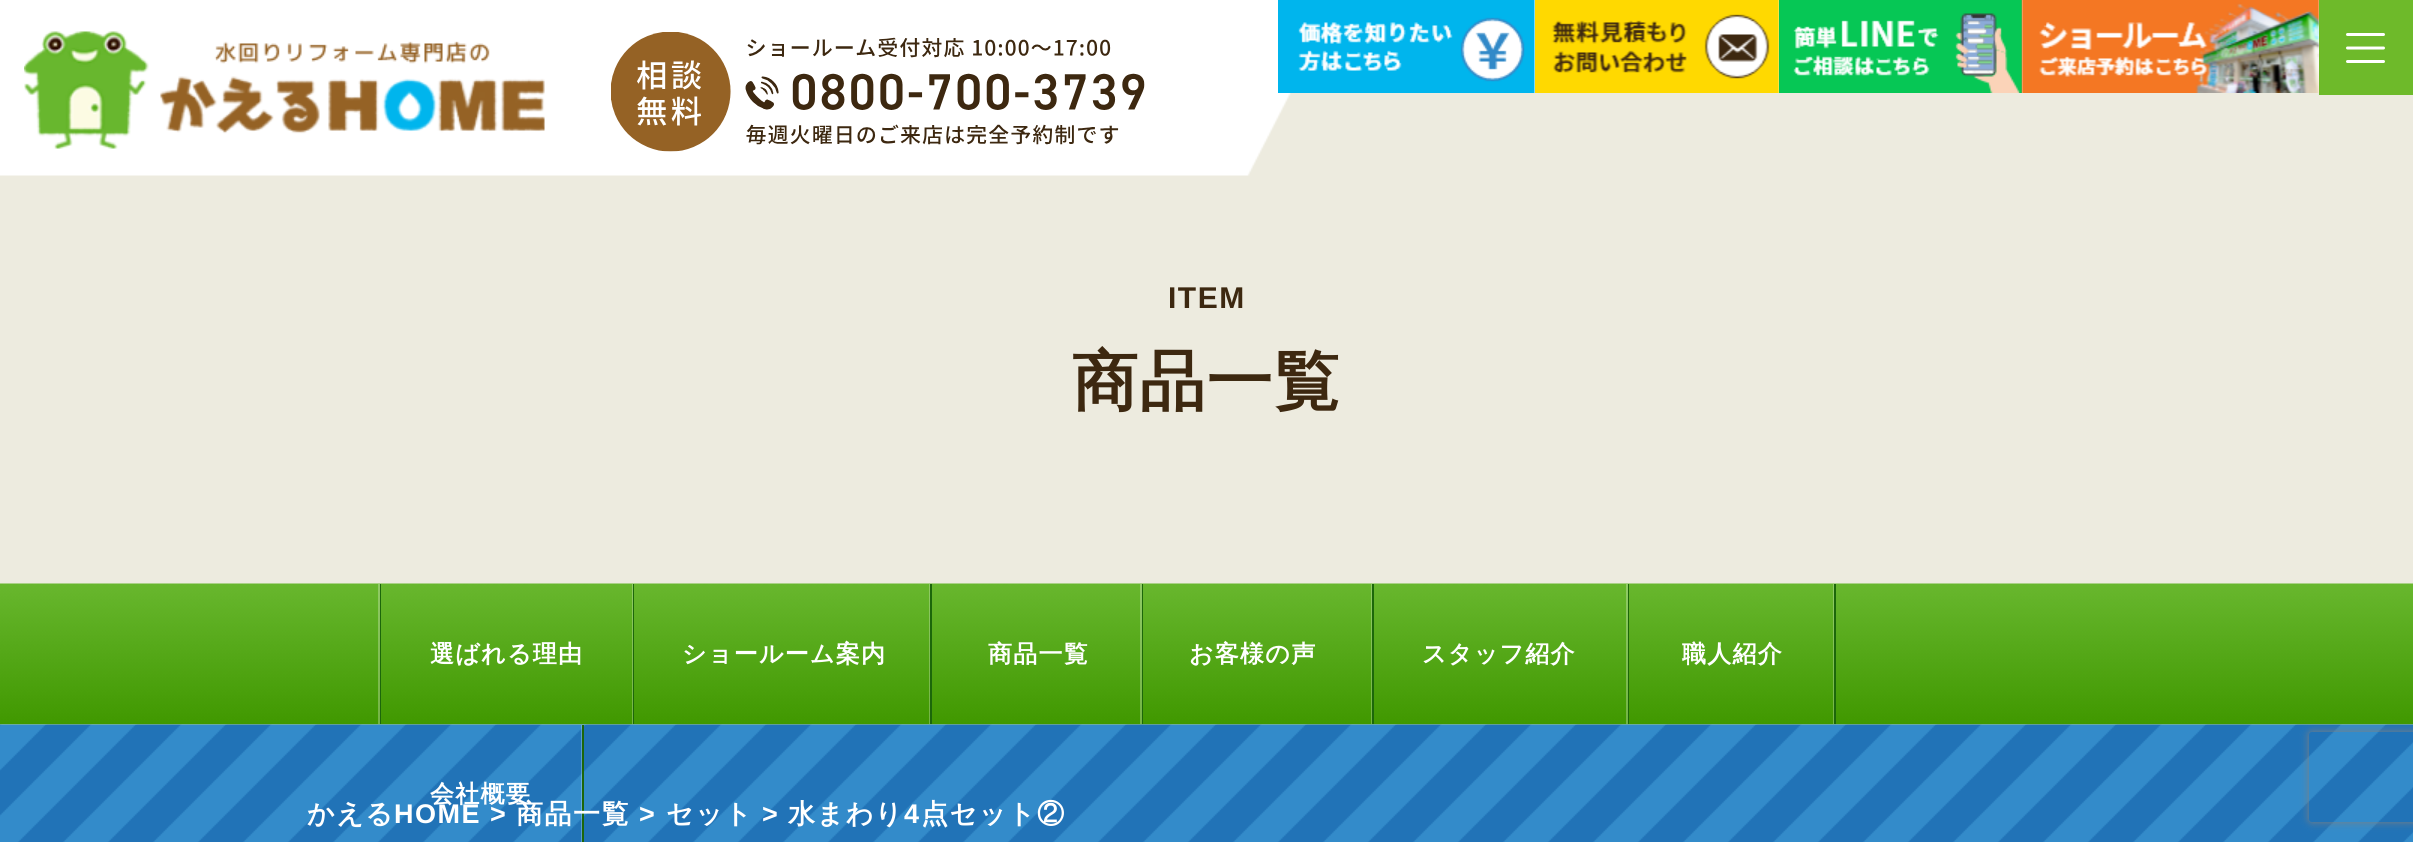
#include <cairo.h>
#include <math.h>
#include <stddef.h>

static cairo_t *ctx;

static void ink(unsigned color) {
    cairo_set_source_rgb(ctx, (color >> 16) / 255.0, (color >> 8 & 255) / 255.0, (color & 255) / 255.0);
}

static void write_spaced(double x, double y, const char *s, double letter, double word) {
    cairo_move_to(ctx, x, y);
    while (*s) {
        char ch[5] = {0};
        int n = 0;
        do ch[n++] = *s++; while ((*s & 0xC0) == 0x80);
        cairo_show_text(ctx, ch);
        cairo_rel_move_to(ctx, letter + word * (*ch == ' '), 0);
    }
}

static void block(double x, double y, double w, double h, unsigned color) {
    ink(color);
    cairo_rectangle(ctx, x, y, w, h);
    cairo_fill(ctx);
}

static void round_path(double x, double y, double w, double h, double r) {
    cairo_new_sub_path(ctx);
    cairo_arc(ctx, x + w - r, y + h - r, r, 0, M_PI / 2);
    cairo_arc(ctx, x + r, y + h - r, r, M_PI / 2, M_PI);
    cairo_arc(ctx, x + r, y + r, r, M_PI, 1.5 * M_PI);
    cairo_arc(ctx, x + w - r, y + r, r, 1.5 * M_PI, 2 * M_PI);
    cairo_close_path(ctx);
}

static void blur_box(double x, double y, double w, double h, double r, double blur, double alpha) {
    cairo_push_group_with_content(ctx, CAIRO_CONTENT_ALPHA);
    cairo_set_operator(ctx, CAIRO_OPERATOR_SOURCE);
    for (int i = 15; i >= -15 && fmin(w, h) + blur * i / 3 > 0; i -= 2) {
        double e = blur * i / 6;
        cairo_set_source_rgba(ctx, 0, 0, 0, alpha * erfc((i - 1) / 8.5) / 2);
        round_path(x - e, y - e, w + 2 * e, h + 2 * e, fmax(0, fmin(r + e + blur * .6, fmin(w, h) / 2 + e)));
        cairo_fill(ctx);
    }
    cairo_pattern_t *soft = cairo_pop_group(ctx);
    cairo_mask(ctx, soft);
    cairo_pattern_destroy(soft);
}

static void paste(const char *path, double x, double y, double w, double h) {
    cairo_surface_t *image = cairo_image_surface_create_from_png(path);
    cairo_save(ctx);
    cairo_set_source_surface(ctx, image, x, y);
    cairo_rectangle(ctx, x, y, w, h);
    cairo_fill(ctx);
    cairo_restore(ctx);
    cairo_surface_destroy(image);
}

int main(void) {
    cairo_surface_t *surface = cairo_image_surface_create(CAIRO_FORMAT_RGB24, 2413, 842);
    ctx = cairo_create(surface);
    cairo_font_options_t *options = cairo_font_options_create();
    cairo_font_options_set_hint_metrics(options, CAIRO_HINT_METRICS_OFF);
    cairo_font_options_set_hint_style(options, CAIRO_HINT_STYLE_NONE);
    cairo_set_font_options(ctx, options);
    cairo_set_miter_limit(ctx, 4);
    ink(0xffffff);
    cairo_paint(ctx);
    block(0, 93, 2413, 491, 0xedebdf);
    paste("pic1.png", 0, 93, 1291, 83);
    paste("pic2.png", 24, 31, 521, 118);
    paste("pic3.png", 611, 32, 534, 120);
    paste("pic4.png", 1278, 0, 257, 93);
    paste("pic5.png", 1535, 0, 244, 93);
    paste("pic6.png", 1779, 0, 243, 93);
    paste("pic7.png", 2021, 0, 298, 93);
    paste("pic8.png", 2319, 0, 94, 95);
    cairo_select_font_face(ctx, "Liberation Sans", CAIRO_FONT_SLANT_NORMAL, CAIRO_FONT_WEIGHT_BOLD);
    cairo_set_font_size(ctx, 30);
    ink(0x3d2810);
    write_spaced(1168, 308, "ITEM", 1.5, 0);
    cairo_select_font_face(ctx, "WenQuanYi Zen Hei", CAIRO_FONT_SLANT_NORMAL, CAIRO_FONT_WEIGHT_BOLD);
    cairo_set_font_size(ctx, 66);
    write_spaced(1072, 404, "商品一覧", 1.25, 0);
    paste("pic9.png", 0, 583, 2413, 142);
    block(380, 584, 1, 140, 0x1c670a);
    cairo_set_source_rgba(ctx, 1, 1, 1, 0.27);
    cairo_rectangle(ctx, 378, 584, 2, 140);
    cairo_fill(ctx);
    block(633, 584, 1, 140, 0x1c670a);
    cairo_set_source_rgba(ctx, 1, 1, 1, 0.27);
    cairo_rectangle(ctx, 632, 584, 1, 140);
    cairo_fill(ctx);
    cairo_set_font_size(ctx, 24);
    ink(0xffffff);
    write_spaced(430, 662, "選ばれる理由", 1.25, 0);
    block(930, 584, 2, 140, 0x1c670a);
    cairo_set_source_rgba(ctx, 1, 1, 1, 0.27);
    cairo_rectangle(ctx, 929, 584, 1, 140);
    cairo_fill(ctx);
    ink(0xffffff);
    write_spaced(682, 662, "ショールーム案内", 1.25, 0);
    block(1142, 584, 1, 140, 0x1c670a);
    cairo_set_source_rgba(ctx, 1, 1, 1, 0.27);
    cairo_rectangle(ctx, 1140, 584, 2, 140);
    cairo_fill(ctx);
    ink(0xffffff);
    write_spaced(988, 662, "商品一覧", 1.25, 0);
    block(1372, 584, 2, 140, 0x1c670a);
    cairo_set_source_rgba(ctx, 1, 1, 1, 0.27);
    cairo_rectangle(ctx, 1371, 584, 1, 140);
    cairo_fill(ctx);
    ink(0xffffff);
    write_spaced(1189, 662, "お客様の声", 1.25, 0);
    block(1628, 584, 1, 140, 0x1c670a);
    cairo_set_source_rgba(ctx, 1, 1, 1, 0.27);
    cairo_rectangle(ctx, 1626, 584, 2, 140);
    cairo_fill(ctx);
    ink(0xffffff);
    write_spaced(1422, 662, "スタッフ紹介", 1.25, 0);
    block(1834, 584, 2, 140, 0x1c670a);
    cairo_set_source_rgba(ctx, 1, 1, 1, 0.27);
    cairo_rectangle(ctx, 1833, 584, 1, 140);
    cairo_fill(ctx);
    ink(0xffffff);
    write_spaced(1682, 662, "職人紹介", 1.25, 0);
    paste("pic10.png", 0, 724, 2413, 118);
    block(582, 725, 2, 117, 0x1c670a);
    cairo_set_source_rgba(ctx, 1, 1, 1, 0.27);
    cairo_rectangle(ctx, 581, 725, 1, 117);
    cairo_fill(ctx);
    ink(0xffffff);
    write_spaced(430, 802, "会社概要", 1.25, 0);
    cairo_save(ctx);
    cairo_set_fill_rule(ctx, CAIRO_FILL_RULE_EVEN_ODD);
    cairo_new_path(ctx);
    cairo_move_to(ctx, 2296, 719);
    cairo_line_to(ctx, 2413, 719);
    cairo_line_to(ctx, 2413, 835);
    cairo_line_to(ctx, 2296, 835);
    cairo_close_path(ctx);
    cairo_move_to(ctx, 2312, 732);
    cairo_line_to(ctx, 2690, 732);
    cairo_curve_to(ctx, 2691.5, 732, 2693, 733.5, 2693, 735);
    cairo_line_to(ctx, 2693, 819);
    cairo_curve_to(ctx, 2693, 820.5, 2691.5, 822, 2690, 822);
    cairo_line_to(ctx, 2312, 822);
    cairo_curve_to(ctx, 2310.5, 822, 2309, 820.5, 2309, 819);
    cairo_line_to(ctx, 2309, 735);
    cairo_curve_to(ctx, 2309, 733.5, 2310.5, 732, 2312, 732);
    cairo_close_path(ctx);
    cairo_clip(ctx);
    ink(0x808080);
    blur_box(2309, 732, 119, 90, 3, 4, 1);
    cairo_restore(ctx);
    cairo_set_font_size(ctx, 27);
    write_spaced(307, 823, "かえる", 1.5, 0);
    cairo_select_font_face(ctx, "Liberation Sans", CAIRO_FONT_SLANT_NORMAL, CAIRO_FONT_WEIGHT_BOLD);
    write_spaced(394, 823, "HOME >", 1.5, 0);
    cairo_select_font_face(ctx, "WenQuanYi Zen Hei", CAIRO_FONT_SLANT_NORMAL, CAIRO_FONT_WEIGHT_BOLD);
    write_spaced(516, 823, "商品一覧", 1.5, 0);
    cairo_select_font_face(ctx, "Liberation Sans", CAIRO_FONT_SLANT_NORMAL, CAIRO_FONT_WEIGHT_BOLD);
    write_spaced(639, 823, ">", 1.5, 0);
    cairo_select_font_face(ctx, "WenQuanYi Zen Hei", CAIRO_FONT_SLANT_NORMAL, CAIRO_FONT_WEIGHT_BOLD);
    write_spaced(666, 823, "セット", 1.5, 0);
    cairo_select_font_face(ctx, "Liberation Sans", CAIRO_FONT_SLANT_NORMAL, CAIRO_FONT_WEIGHT_BOLD);
    write_spaced(762, 823, ">", 1.5, 0);
    cairo_select_font_face(ctx, "WenQuanYi Zen Hei", CAIRO_FONT_SLANT_NORMAL, CAIRO_FONT_WEIGHT_BOLD);
    write_spaced(788, 823, "水まわり", 1.5, 0);
    cairo_select_font_face(ctx, "Liberation Sans", CAIRO_FONT_SLANT_NORMAL, CAIRO_FONT_WEIGHT_BOLD);
    write_spaced(904, 823, "4", 1.5, 0);
    cairo_select_font_face(ctx, "WenQuanYi Zen Hei", CAIRO_FONT_SLANT_NORMAL, CAIRO_FONT_WEIGHT_BOLD);
    write_spaced(921, 823, "点セット②", 1.5, 0);
    cairo_surface_write_to_png(surface, "screenshot.png");
    cairo_font_options_destroy(options);
    cairo_destroy(ctx);
    cairo_surface_destroy(surface);
    return 0;
}
